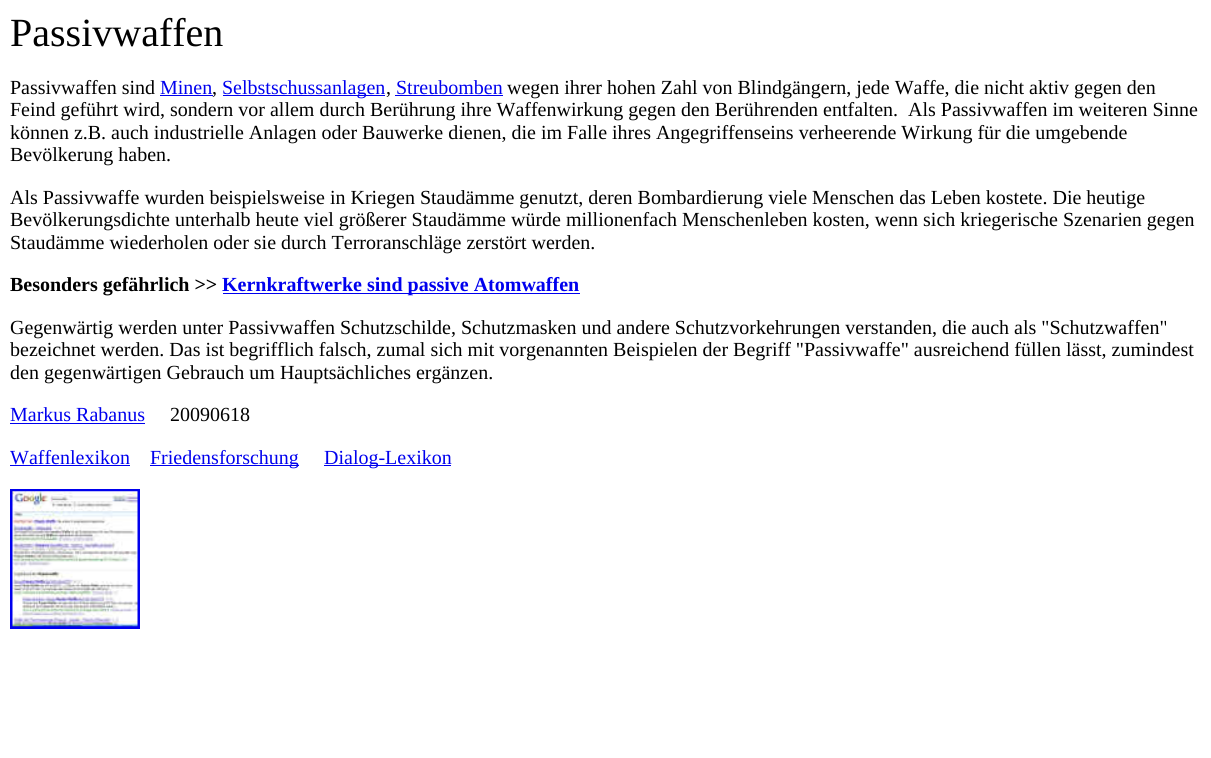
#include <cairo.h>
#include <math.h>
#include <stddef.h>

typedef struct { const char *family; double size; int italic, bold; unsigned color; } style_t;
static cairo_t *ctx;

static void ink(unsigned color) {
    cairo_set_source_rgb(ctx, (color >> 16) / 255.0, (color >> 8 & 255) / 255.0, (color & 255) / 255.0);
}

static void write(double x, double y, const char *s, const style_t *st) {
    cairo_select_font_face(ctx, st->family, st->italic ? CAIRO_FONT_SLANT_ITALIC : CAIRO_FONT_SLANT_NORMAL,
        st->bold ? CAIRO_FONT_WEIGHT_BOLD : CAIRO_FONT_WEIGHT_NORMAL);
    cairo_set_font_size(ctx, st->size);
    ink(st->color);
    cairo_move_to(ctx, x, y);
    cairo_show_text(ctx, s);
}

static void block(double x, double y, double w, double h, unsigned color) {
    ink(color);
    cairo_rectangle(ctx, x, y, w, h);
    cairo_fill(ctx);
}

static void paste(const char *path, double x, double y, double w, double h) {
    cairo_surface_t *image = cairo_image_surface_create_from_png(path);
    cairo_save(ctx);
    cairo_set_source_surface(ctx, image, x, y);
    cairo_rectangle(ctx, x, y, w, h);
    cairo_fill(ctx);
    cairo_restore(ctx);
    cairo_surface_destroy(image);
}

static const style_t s1 = {"Liberation Serif", 40, 0, 0, 0x000000};
static const style_t s2 = {"Liberation Serif", 20, 0, 0, 0x000000};
static const style_t s3 = {"Liberation Serif", 20, 0, 0, 0x0000ee};
static const style_t s4 = {"Liberation Serif", 20, 0, 1, 0x000000};
static const style_t s5 = {"Liberation Serif", 20, 0, 1, 0x0000ee};

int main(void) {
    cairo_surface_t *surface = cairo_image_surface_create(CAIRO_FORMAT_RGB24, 1211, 758);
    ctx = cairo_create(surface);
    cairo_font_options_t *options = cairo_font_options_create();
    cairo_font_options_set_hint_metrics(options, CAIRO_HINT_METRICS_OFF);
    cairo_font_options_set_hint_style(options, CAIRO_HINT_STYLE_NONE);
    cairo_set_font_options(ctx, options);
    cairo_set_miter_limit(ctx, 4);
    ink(0xffffff);
    cairo_paint(ctx);
    write(10, 46, "Passivwaffen", &s1);
    write(10, 94, "Passivwaffen sind", &s2);
    write(160, 94, "Minen", &s3);
    block(160, 95, 53, 1, 0x0000ee);
    write(212, 94, ",", &s2);
    block(223, 95, 162, 1, 0x0000ee);
    write(222, 94, "Selbstschussanlagen", &s3);
    write(386, 94, ",", &s2);
    write(396, 94, "Streubomben", &s3);
    block(395, 95, 108, 1, 0x0000ee);
    write(507, 94, "wegen ihrer hohen Zahl von Blindgängern, jede Waffe, die nicht aktiv gegen den", &s2);
    write(10, 116, "Feind geführt wird, sondern vor allem durch Berührung ihre Waffenwirkung gegen den Berührenden entfalten.  Als Passivwaffen im weiteren Sinne", &s2);
    write(10, 139, "können z.B. auch industrielle Anlagen oder Bauwerke dienen, die im Falle ihres Angegriffenseins verheerende Wirkung für die umgebende", &s2);
    write(10, 161, "Bevölkerung haben.", &s2);
    write(10, 204, "Als Passivwaffe wurden beispielsweise in Kriegen Staudämme genutzt, deren Bombardierung viele Menschen das Leben kostete. Die heutige", &s2);
    write(10, 226, "Bevölkerungsdichte unterhalb heute viel größerer Staudämme würde millionenfach Menschenleben kosten, wenn sich kriegerische Szenarien gegen", &s2);
    write(10, 249, "Staudämme wiederholen oder sie durch Terroranschläge zerstört werden.", &s2);
    write(10, 291, "Besonders gefährlich >>", &s4);
    block(223, 293, 357, 1, 0x0000ee);
    write(222, 291, "Kernkraftwerke sind passive Atomwaffen", &s5);
    write(10, 334, "Gegenwärtig werden unter Passivwaffen Schutzschilde, Schutzmasken und andere Schutzvorkehrungen verstanden, die auch als \"Schutzwaffen\"", &s2);
    write(10, 356, "bezeichnet werden. Das ist begrifflich falsch, zumal sich mit vorgenannten Beispielen der Begriff \"Passivwaffe\" ausreichend füllen lässt, zumindest", &s2);
    write(10, 379, "den gegenwärtigen Gebrauch um Hauptsächliches ergänzen.", &s2);
    write(10, 421, "Markus Rabanus", &s3);
    block(10, 423, 135, 1, 0x0000ee);
    write(170, 421, "20090618", &s2);
    write(10, 464, "Waffenlexikon", &s3);
    block(10, 465, 120, 1, 0x0000ee);
    block(150, 465, 149, 1, 0x0000ee);
    write(150, 464, "Friedensforschung", &s3);
    block(324, 465, 127, 1, 0x0000ee);
    write(324, 464, "Dialog-Lexikon", &s3);
    cairo_rectangle(ctx, 11.5, 490.5, 127, 137);
    cairo_set_line_width(ctx, 3);
    cairo_stroke(ctx);
    paste("pic1.png", 12, 491, 126, 136);
    cairo_surface_write_to_png(surface, "screenshot.png");
    cairo_font_options_destroy(options);
    cairo_destroy(ctx);
    cairo_surface_destroy(surface);
    return 0;
}
